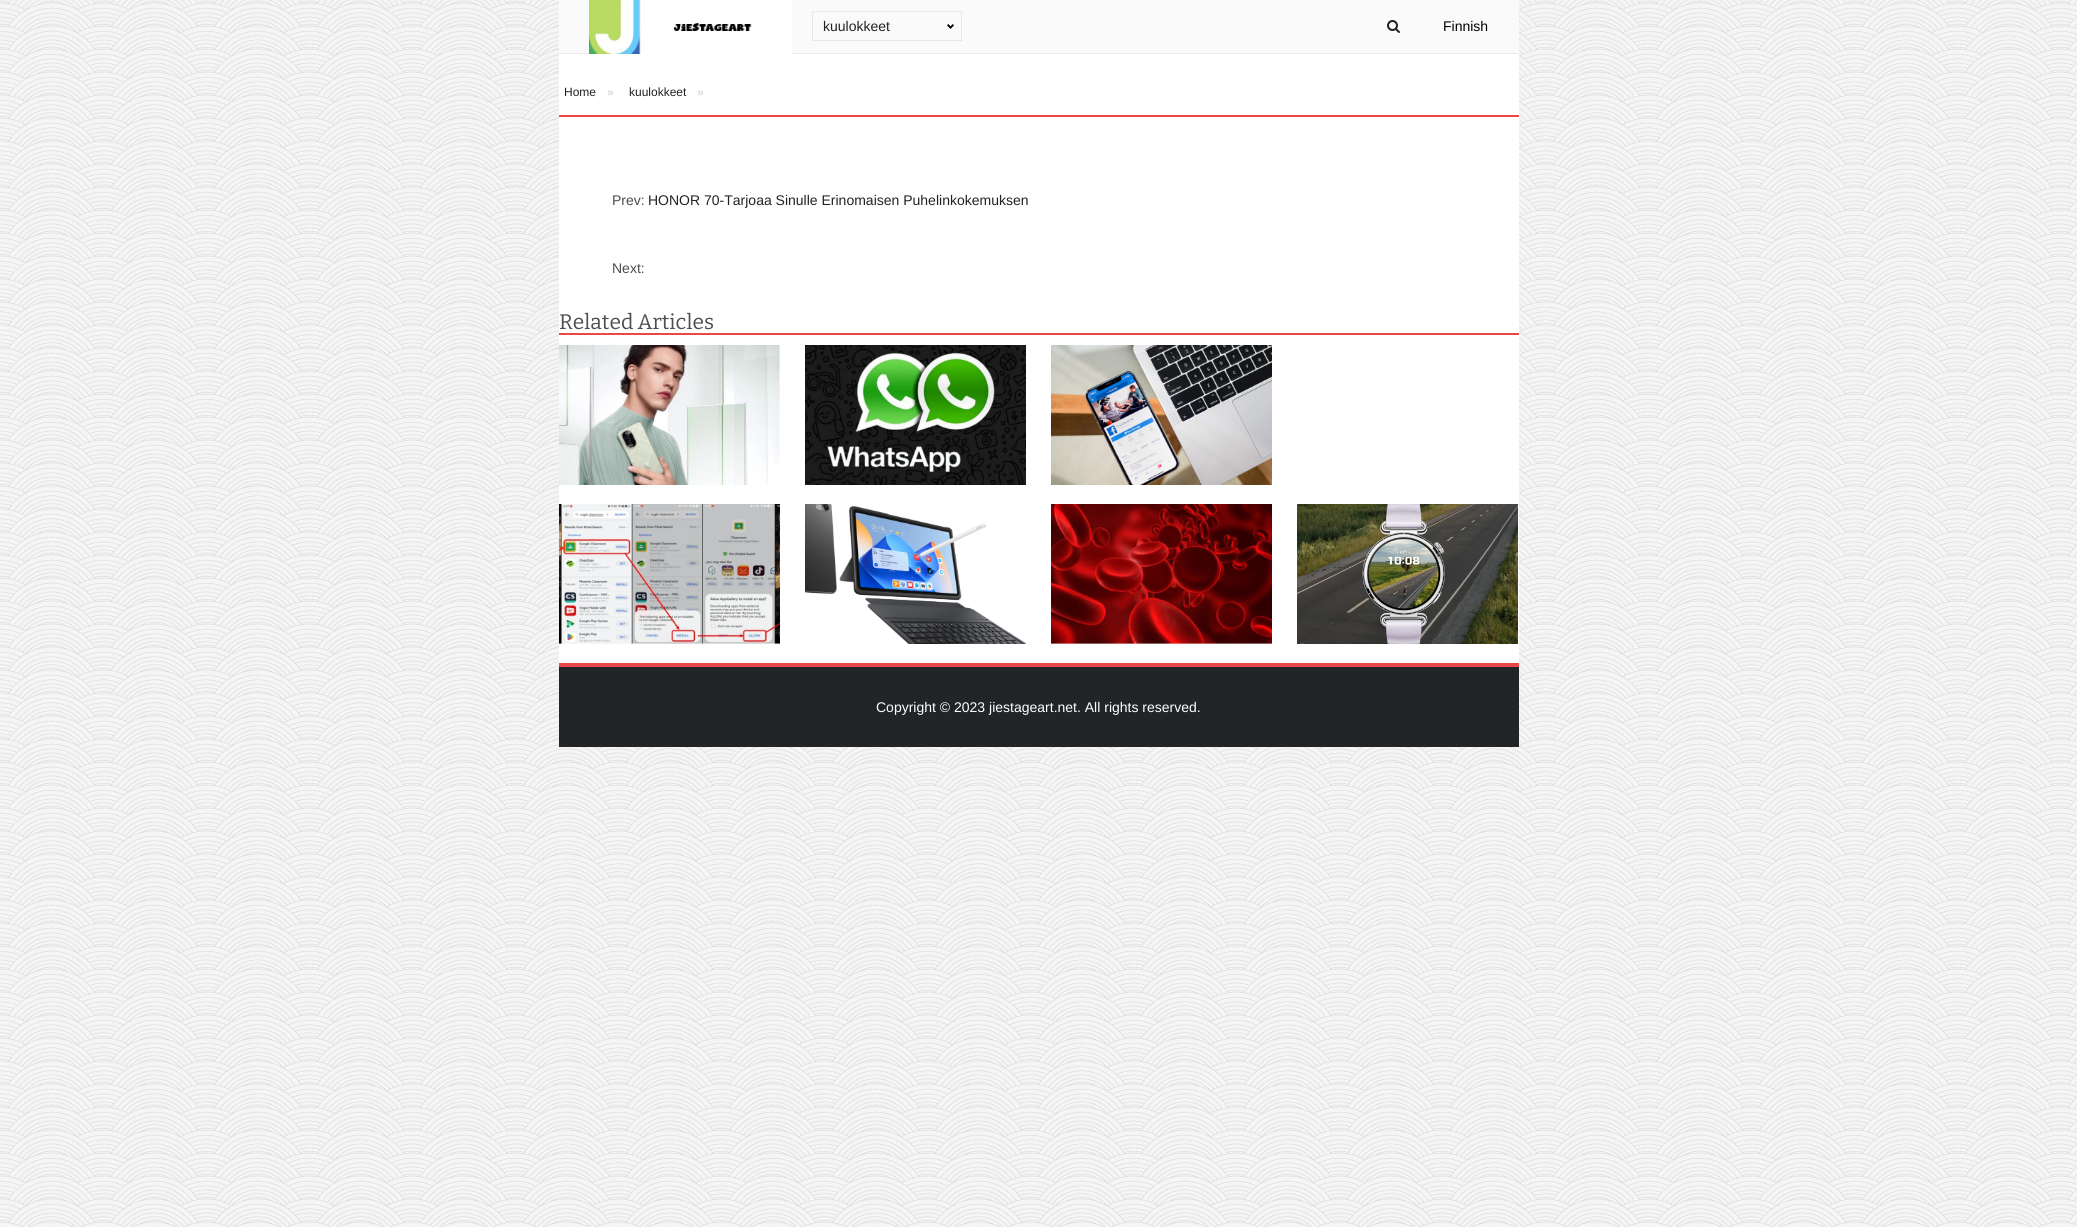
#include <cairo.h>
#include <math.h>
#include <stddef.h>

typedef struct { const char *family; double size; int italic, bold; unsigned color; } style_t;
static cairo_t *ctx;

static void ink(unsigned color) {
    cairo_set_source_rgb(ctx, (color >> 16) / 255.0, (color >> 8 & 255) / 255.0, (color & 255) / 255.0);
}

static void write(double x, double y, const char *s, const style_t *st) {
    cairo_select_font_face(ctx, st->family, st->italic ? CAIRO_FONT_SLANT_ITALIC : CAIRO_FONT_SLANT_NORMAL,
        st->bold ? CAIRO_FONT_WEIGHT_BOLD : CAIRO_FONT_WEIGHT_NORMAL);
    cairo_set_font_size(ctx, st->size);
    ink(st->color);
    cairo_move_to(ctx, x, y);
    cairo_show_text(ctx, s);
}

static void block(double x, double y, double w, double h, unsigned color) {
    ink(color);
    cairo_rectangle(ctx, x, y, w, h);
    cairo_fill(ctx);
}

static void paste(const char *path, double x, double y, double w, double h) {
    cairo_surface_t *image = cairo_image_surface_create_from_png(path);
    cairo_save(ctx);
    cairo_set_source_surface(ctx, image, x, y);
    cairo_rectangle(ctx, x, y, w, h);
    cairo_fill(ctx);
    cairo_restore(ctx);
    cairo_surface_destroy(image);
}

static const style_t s1 = {"Liberation Sans", 14, 0, 0, 0x222222};
static const style_t s2 = {"Liberation Sans", 14, 0, 0, 0x000000};
static const style_t s3 = {"Liberation Sans", 12, 0, 0, 0x222222};
static const style_t s4 = {"Liberation Sans", 12, 0, 0, 0xcccccc};
static const style_t s5 = {"Liberation Sans", 14, 0, 0, 0x4c4d51};
static const style_t s6 = {"Bitter", 21, 0, 0, 0x4c4d51};
static const style_t s7 = {"Liberation Sans", 14, 0, 0, 0xffffff};

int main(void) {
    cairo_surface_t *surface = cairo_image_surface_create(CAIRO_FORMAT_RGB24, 2077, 1227);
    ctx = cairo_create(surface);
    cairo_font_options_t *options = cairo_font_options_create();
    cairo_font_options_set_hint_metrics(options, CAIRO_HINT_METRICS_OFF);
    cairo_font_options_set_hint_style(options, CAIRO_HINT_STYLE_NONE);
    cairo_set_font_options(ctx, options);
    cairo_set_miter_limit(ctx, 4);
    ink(0xffffff);
    cairo_paint(ctx);
    paste("pic1.png", 0, 0, 2077, 1227);
    block(559, 0, 960, 53, 0xfafafa);
    block(559, 53, 960, 1, 0xeaeaea);
    paste("pic2.png", 589, 0, 203, 54);
    paste("pic3.png", 947, 24, 7, 5);
    cairo_rectangle(ctx, 812.5, 11.5, 149, 29);
    ink(0xe7e7e7);
    cairo_set_line_width(ctx, 1);
    cairo_stroke(ctx);
    write(823, 31, "kuulokkeet", &s1);
    paste("pic4.png", 1387, 20, 13, 13);
    paste("pic5.png", 1429, 21, 1, 7);
    write(1443, 31, "Finnish", &s2);
    block(559, 54, 960, 609, 0xffffff);
    block(559, 115, 960, 2, 0xea4848);
    write(564, 96, "Home", &s3);
    write(607, 96, "»", &s4);
    write(629, 96, "kuulokkeet", &s3);
    write(697, 96, "»", &s4);
    write(612, 205, "Prev:", &s5);
    write(648, 205, "HONOR 70-Tarjoaa Sinulle Erinomaisen Puhelinkokemuksen", &s1);
    write(612, 273, "Next:", &s5);
    block(559, 333, 960, 2, 0xea4848);
    write(559, 329, "Related Articles", &s6);
    paste("pic6.png", 559, 345, 221, 140);
    paste("pic7.png", 805, 345, 221, 140);
    paste("pic8.png", 1051, 345, 221, 140);
    paste("pic9.png", 559, 504, 221, 140);
    paste("pic10.png", 805, 504, 221, 140);
    paste("pic11.png", 1051, 504, 221, 140);
    paste("pic12.png", 1297, 504, 221, 140);
    block(559, 667, 960, 80, 0x222528);
    block(559, 663, 960, 4, 0xea4848);
    write(876, 712, "Copyright © 2023 jiestageart.net. All rights reserved.", &s7);
    cairo_surface_write_to_png(surface, "screenshot.png");
    cairo_font_options_destroy(options);
    cairo_destroy(ctx);
    cairo_surface_destroy(surface);
    return 0;
}
